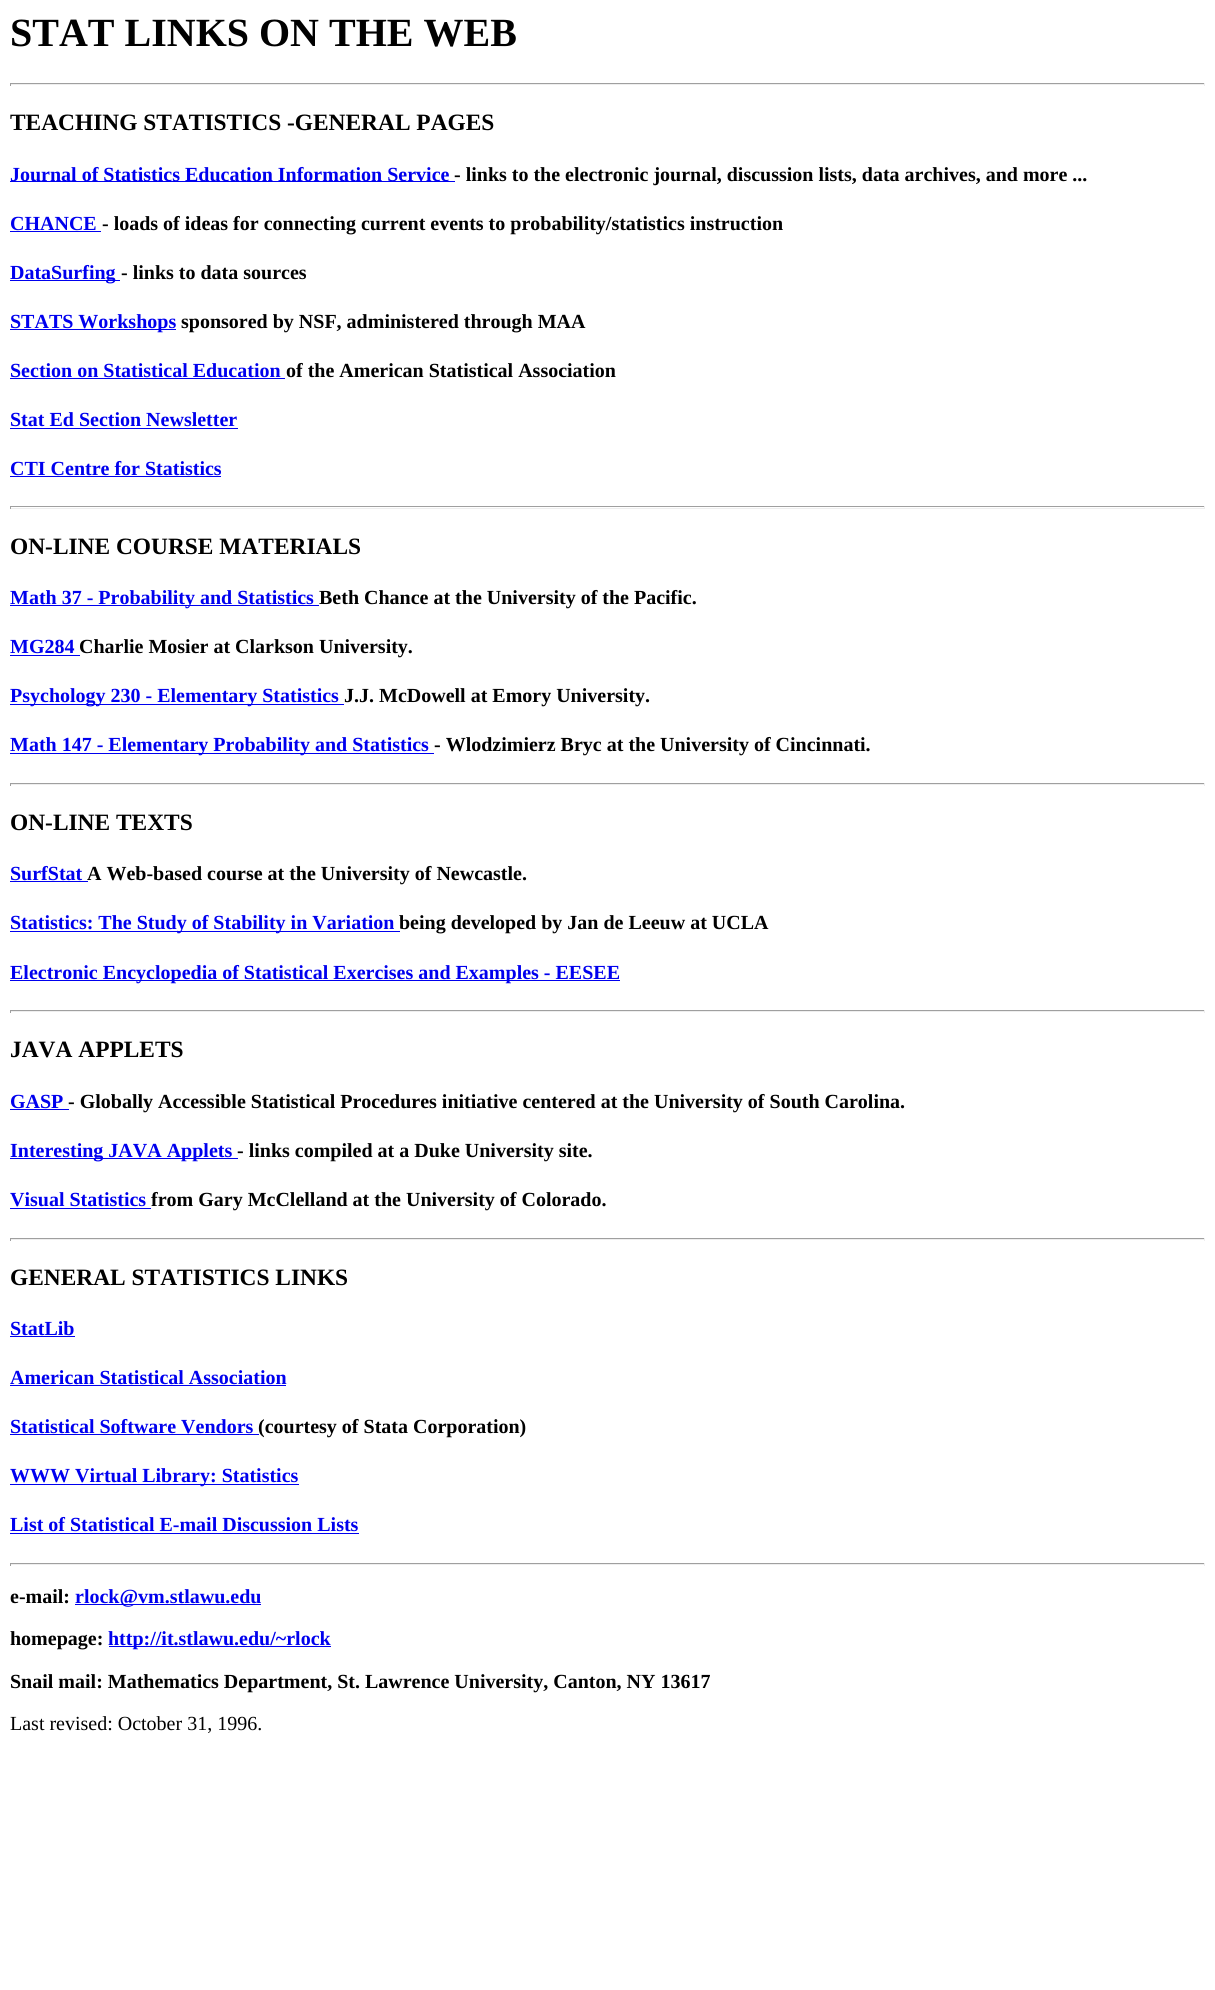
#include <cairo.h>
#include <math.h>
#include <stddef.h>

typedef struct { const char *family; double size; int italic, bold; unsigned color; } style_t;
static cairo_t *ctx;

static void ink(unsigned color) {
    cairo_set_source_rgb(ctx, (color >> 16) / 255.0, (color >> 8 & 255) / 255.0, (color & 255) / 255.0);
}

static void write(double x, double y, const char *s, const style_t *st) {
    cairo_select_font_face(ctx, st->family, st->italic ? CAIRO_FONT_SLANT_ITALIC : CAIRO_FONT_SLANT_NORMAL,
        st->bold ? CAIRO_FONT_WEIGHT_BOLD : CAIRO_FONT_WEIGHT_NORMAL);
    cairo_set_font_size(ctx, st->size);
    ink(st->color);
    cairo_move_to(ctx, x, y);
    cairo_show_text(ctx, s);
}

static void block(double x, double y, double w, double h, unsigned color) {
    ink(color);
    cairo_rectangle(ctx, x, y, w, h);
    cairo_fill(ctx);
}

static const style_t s1 = {"Liberation Serif", 40, 0, 1, 0x000000};
static const style_t s2 = {"Liberation Serif", 23.4, 0, 1, 0x000000};
static const style_t s3 = {"Liberation Serif", 20, 0, 1, 0x0000ee};
static const style_t s4 = {"Liberation Serif", 20, 0, 1, 0x000000};
static const style_t s5 = {"Liberation Serif", 20, 0, 0, 0x000000};

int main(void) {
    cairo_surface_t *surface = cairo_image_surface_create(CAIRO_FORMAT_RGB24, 1215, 1990);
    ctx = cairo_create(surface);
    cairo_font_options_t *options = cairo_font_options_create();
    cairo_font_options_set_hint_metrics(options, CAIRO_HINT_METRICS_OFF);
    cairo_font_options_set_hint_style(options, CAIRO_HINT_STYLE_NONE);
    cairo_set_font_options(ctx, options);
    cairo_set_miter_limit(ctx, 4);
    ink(0xffffff);
    cairo_paint(ctx);
    write(10, 46, "STAT LINKS ON THE WEB", &s1);
    block(10, 83, 1195, 1, 0x9f9f9f);
    block(1204, 83, 1, 3, 0xeeeeee);
    block(10, 84, 1195, 1, 0xeeeeee);
    block(10, 83, 1, 3, 0x9f9f9f);
    write(10, 130, "TEACHING STATISTICS -GENERAL PAGES", &s2);
    block(10, 181, 445, 1, 0x0000ee);
    write(10, 181, "Journal of Statistics Education Information Service", &s3);
    write(454, 181, "- links to the electronic journal, discussion lists, data archives, and more ...", &s4);
    write(10, 230, "CHANCE", &s3);
    block(10, 231, 91, 1, 0x0000ee);
    write(102, 230, "- loads of ideas for connecting current events to probability/statistics instruction", &s4);
    block(10, 280, 110, 1, 0x0000ee);
    write(10, 279, "DataSurfing", &s3);
    write(121, 279, "- links to data sources", &s4);
    block(10, 329, 166, 1, 0x0000ee);
    write(10, 328, "STATS Workshops", &s3);
    write(181, 328, "sponsored by NSF, administered through MAA", &s4);
    write(10, 377, "Section on Statistical Education", &s3);
    block(10, 378, 275, 1, 0x0000ee);
    write(286, 377, "of the American Statistical Association", &s4);
    write(10, 426, "Stat Ed Section Newsletter", &s3);
    block(10, 428, 228, 1, 0x0000ee);
    write(10, 475, "CTI Centre for Statistics", &s3);
    block(10, 476, 211, 1, 0x0000ee);
    block(10, 506, 1195, 1, 0x9f9f9f);
    block(1204, 506, 1, 3, 0xeeeeee);
    block(10, 508, 1195, 1, 0xeeeeee);
    block(10, 506, 1, 3, 0x9f9f9f);
    write(10, 554, "ON-LINE COURSE MATERIALS", &s2);
    block(10, 605, 309, 1, 0x0000ee);
    write(10, 604, "Math 37 - Probability and Statistics", &s3);
    write(319, 604, "Beth Chance at the University of the Pacific.", &s4);
    write(10, 653, "MG284", &s3);
    block(10, 655, 70, 1, 0x0000ee);
    write(79, 653, "Charlie Mosier at Clarkson University.", &s4);
    block(10, 704, 334, 1, 0x0000ee);
    write(10, 702, "Psychology 230 - Elementary Statistics", &s3);
    write(344, 702, "J.J. McDowell at Emory University.", &s4);
    block(10, 753, 424, 1, 0x0000ee);
    write(10, 751, "Math 147 - Elementary Probability and Statistics", &s3);
    write(434, 751, "- Wlodzimierz Bryc at the University of Cincinnati.", &s4);
    block(10, 783, 1195, 1, 0x9f9f9f);
    block(1204, 783, 1, 3, 0xeeeeee);
    block(10, 784, 1195, 1, 0xeeeeee);
    block(10, 783, 1, 3, 0x9f9f9f);
    write(10, 830, "ON-LINE TEXTS", &s2);
    write(10, 880, "SurfStat", &s3);
    block(10, 881, 78, 1, 0x0000ee);
    write(87, 880, "A Web-based course at the University of Newcastle.", &s4);
    block(10, 931, 390, 1, 0x0000ee);
    write(10, 929, "Statistics: The Study of Stability in Variation", &s3);
    write(399, 929, "being developed by Jan de Leeuw at UCLA", &s4);
    block(10, 980, 610, 1, 0x0000ee);
    write(10, 979, "Electronic Encyclopedia of Statistical Exercises and Examples - EESEE", &s3);
    block(10, 1010, 1195, 1, 0x9f9f9f);
    block(1204, 1010, 1, 3, 0xeeeeee);
    block(10, 1011, 1195, 1, 0xeeeeee);
    block(10, 1010, 1, 3, 0x9f9f9f);
    write(10, 1057, "JAVA APPLETS", &s2);
    write(10, 1108, "GASP", &s3);
    block(10, 1109, 59, 1, 0x0000ee);
    write(68, 1108, "- Globally Accessible Statistical Procedures initiative centered at the University of South Carolina.", &s4);
    block(10, 1158, 228, 1, 0x0000ee);
    write(10, 1157, "Interesting JAVA Applets", &s3);
    write(237, 1157, "- links compiled at a Duke University site.", &s4);
    write(10, 1206, "Visual Statistics", &s3);
    block(10, 1208, 141, 1, 0x0000ee);
    write(151, 1206, "from Gary McClelland at the University of Colorado.", &s4);
    block(10, 1238, 1195, 1, 0x9f9f9f);
    block(1204, 1238, 1, 3, 0xeeeeee);
    block(10, 1239, 1195, 1, 0xeeeeee);
    block(10, 1238, 1, 3, 0x9f9f9f);
    write(10, 1285, "GENERAL STATISTICS LINKS", &s2);
    write(10, 1335, "StatLib", &s3);
    block(10, 1336, 65, 1, 0x0000ee);
    write(10, 1384, "American Statistical Association", &s3);
    block(10, 1385, 276, 1, 0x0000ee);
    write(10, 1433, "Statistical Software Vendors", &s3);
    block(10, 1434, 249, 1, 0x0000ee);
    write(258, 1433, "(courtesy of Stata Corporation)", &s4);
    block(10, 1484, 289, 1, 0x0000ee);
    write(10, 1482, "WWW Virtual Library: Statistics", &s3);
    write(10, 1531, "List of Statistical E-mail Discussion Lists", &s3);
    block(10, 1533, 349, 1, 0x0000ee);
    block(10, 1563, 1195, 1, 0x9f9f9f);
    block(1204, 1563, 1, 3, 0xeeeeee);
    block(10, 1564, 1195, 1, 0xeeeeee);
    block(10, 1563, 1, 3, 0x9f9f9f);
    write(10, 1603, "e-mail:", &s4);
    block(75, 1604, 186, 1, 0x0000ee);
    write(75, 1603, "rlock@vm.stlawu.edu", &s3);
    write(10, 1645, "homepage:", &s4);
    block(109, 1646, 222, 1, 0x0000ee);
    write(108, 1645, "http://it.stlawu.edu/~rlock", &s3);
    write(10, 1688, "Snail mail: Mathematics Department, St. Lawrence University, Canton, NY 13617", &s4);
    write(10, 1730, "Last revised: October 31, 1996.", &s5);
    cairo_surface_write_to_png(surface, "screenshot.png");
    cairo_font_options_destroy(options);
    cairo_destroy(ctx);
    cairo_surface_destroy(surface);
    return 0;
}
